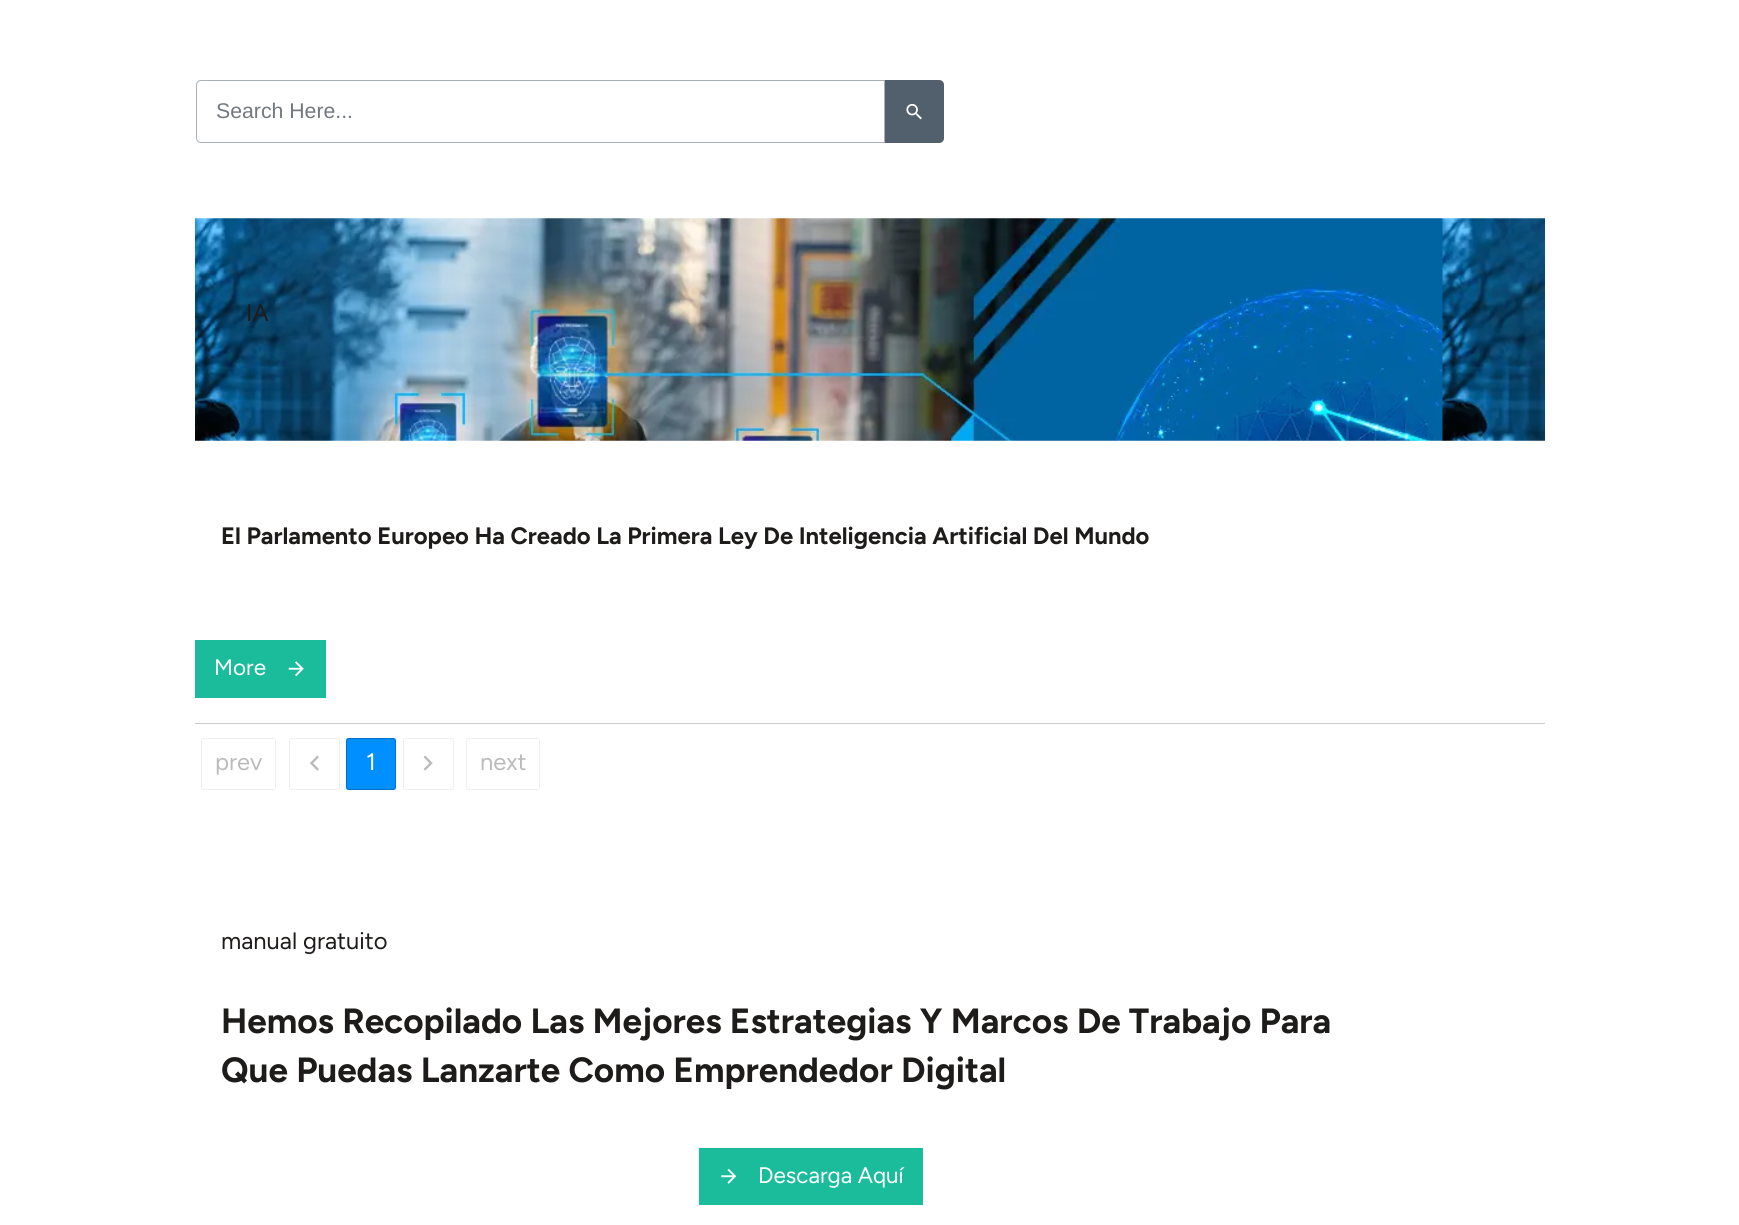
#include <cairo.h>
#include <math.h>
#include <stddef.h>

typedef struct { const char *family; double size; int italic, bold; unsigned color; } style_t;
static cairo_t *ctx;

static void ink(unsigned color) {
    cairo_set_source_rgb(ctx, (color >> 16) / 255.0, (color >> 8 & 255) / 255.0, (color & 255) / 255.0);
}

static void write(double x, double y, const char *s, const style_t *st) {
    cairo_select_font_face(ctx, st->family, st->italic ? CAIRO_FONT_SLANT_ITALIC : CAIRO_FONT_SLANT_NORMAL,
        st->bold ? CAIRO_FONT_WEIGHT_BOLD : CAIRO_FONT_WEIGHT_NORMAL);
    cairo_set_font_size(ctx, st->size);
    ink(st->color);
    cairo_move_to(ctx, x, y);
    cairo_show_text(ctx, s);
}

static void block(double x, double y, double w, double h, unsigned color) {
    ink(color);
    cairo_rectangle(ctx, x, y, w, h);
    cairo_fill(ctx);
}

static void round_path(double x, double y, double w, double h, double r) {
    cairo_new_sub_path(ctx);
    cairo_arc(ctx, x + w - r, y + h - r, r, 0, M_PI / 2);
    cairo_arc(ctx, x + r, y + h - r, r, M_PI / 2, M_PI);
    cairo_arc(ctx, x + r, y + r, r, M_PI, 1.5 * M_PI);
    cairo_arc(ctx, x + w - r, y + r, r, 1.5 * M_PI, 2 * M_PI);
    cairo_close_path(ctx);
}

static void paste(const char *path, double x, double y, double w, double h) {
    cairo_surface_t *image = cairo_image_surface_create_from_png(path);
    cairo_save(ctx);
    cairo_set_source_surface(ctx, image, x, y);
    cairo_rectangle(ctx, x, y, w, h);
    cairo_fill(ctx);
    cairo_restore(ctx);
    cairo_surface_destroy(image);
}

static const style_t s1 = {"Liberation Sans", 21.25, 0, 0, 0x73787f};
static const style_t s2 = {"Figtree", 23.75, 0, 0, 0x1e1c1b};
static const style_t s3 = {"Figtree", 23.75, 0, 1, 0x1e1c1b};
static const style_t s4 = {"Figtree", 22.5, 0, 0, 0xffffff};
static const style_t s5 = {"Figtree", 23.75, 0, 0, 0xbcbbbb};
static const style_t s6 = {"Figtree", 23.75, 0, 0, 0xffffff};
static const style_t s7 = {"Figtree", 35, 0, 1, 0x1e1c1b};

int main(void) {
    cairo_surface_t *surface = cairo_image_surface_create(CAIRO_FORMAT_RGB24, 1739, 1225);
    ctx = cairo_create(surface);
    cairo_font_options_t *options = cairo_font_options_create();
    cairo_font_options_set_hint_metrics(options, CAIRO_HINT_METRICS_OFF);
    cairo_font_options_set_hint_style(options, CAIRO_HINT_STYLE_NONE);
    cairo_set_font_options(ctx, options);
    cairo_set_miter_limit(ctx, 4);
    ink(0xffffff);
    cairo_paint(ctx);
    cairo_new_path(ctx);
    cairo_move_to(ctx, 201, 80.5);
    cairo_line_to(ctx, 884.5, 80.5);
    cairo_line_to(ctx, 884.5, 142.5);
    cairo_line_to(ctx, 201, 142.5);
    cairo_curve_to(ctx, 198.5, 142.5, 196.5, 140.5, 196.5, 138);
    cairo_line_to(ctx, 196.5, 85);
    cairo_curve_to(ctx, 196.5, 82.5, 198.5, 80.5, 201, 80.5);
    cairo_close_path(ctx);
    ink(0xa9b0b6);
    cairo_set_line_width(ctx, 1);
    cairo_stroke(ctx);
    write(216, 118, "Search Here...", &s1);
    ink(0x52606d);
    cairo_new_path(ctx);
    cairo_move_to(ctx, 885, 80);
    cairo_line_to(ctx, 939, 80);
    cairo_curve_to(ctx, 942, 80, 944, 82, 944, 85);
    cairo_line_to(ctx, 944, 138);
    cairo_curve_to(ctx, 944, 141, 942, 143, 939, 143);
    cairo_line_to(ctx, 885, 143);
    cairo_close_path(ctx);
    cairo_fill(ctx);
    paste("pic1.png", 906, 103, 16, 17);
    paste("pic2.png", 195, 218, 1350, 223);
    write(246, 321, "IA", &s2);
    write(221, 544, "El Parlamento Europeo Ha Creado La Primera Ley De Inteligencia Artificial Del Mundo", &s3);
    block(195, 640, 131, 58, 0x1abc9c);
    write(214, 675, "More", &s4);
    paste("pic3.png", 288, 661, 16, 16);
    block(195, 723, 1350, 1, 0xcccccc);
    round_path(201.5, 738.5, 74, 51, 2);
    ink(0xf0f0f0);
    cairo_stroke(ctx);
    write(215, 770, "prev", &s5);
    round_path(289.5, 738.5, 50, 51, 2);
    ink(0xf0f0f0);
    cairo_stroke(ctx);
    paste("pic4.png", 310, 755, 9, 16);
    ink(0x008fff);
    round_path(346, 738, 50, 52, 2.5);
    cairo_fill(ctx);
    round_path(346.5, 738.5, 49, 51, 2);
    cairo_set_source_rgba(ctx, 0, 0, 0, 0.2);
    cairo_stroke(ctx);
    write(366, 770, "1", &s6);
    round_path(403.5, 738.5, 50, 51, 2);
    ink(0xf0f0f0);
    cairo_stroke(ctx);
    paste("pic5.png", 423, 755, 10, 16);
    round_path(466.5, 738.5, 73, 51, 2);
    cairo_stroke(ctx);
    write(480, 770, "next", &s5);
    write(221, 949, "manual gratuito", &s2);
    write(221, 1033, "Hemos Recopilado Las Mejores Estrategias Y Marcos De Trabajo Para", &s7);
    write(221, 1082, "Que Puedas Lanzarte Como Emprendedor Digital", &s7);
    block(699, 1148, 224, 57, 0x1abc9c);
    paste("pic6.png", 721, 1168, 16, 16);
    write(758, 1183, "Descarga Aquí", &s4);
    cairo_surface_write_to_png(surface, "screenshot.png");
    cairo_font_options_destroy(options);
    cairo_destroy(ctx);
    cairo_surface_destroy(surface);
    return 0;
}
